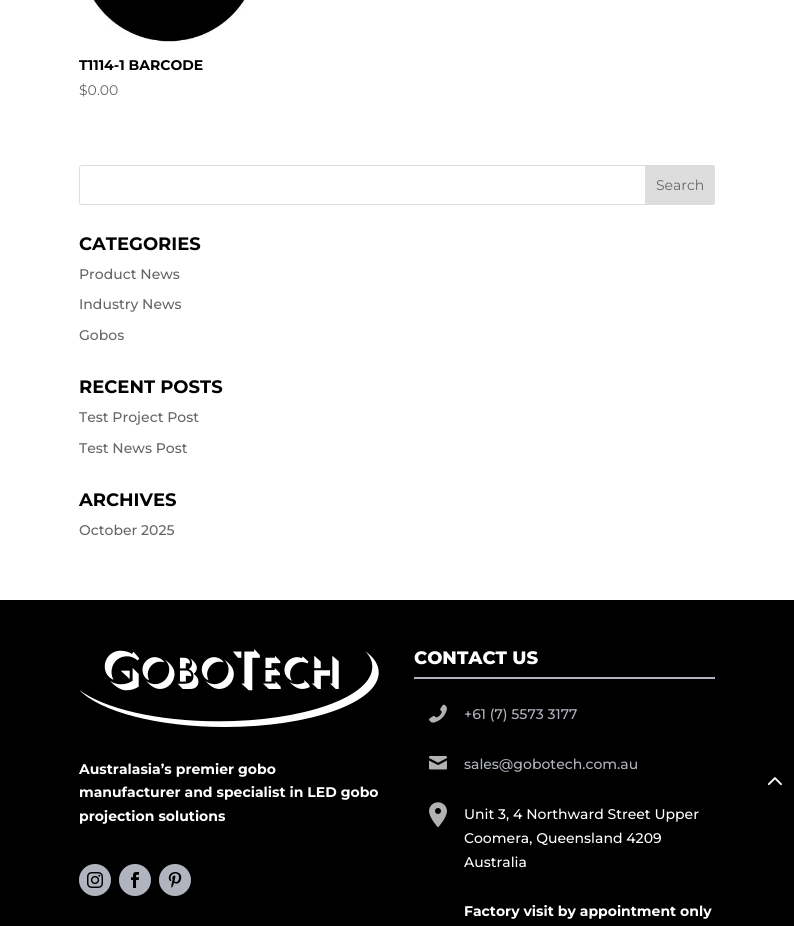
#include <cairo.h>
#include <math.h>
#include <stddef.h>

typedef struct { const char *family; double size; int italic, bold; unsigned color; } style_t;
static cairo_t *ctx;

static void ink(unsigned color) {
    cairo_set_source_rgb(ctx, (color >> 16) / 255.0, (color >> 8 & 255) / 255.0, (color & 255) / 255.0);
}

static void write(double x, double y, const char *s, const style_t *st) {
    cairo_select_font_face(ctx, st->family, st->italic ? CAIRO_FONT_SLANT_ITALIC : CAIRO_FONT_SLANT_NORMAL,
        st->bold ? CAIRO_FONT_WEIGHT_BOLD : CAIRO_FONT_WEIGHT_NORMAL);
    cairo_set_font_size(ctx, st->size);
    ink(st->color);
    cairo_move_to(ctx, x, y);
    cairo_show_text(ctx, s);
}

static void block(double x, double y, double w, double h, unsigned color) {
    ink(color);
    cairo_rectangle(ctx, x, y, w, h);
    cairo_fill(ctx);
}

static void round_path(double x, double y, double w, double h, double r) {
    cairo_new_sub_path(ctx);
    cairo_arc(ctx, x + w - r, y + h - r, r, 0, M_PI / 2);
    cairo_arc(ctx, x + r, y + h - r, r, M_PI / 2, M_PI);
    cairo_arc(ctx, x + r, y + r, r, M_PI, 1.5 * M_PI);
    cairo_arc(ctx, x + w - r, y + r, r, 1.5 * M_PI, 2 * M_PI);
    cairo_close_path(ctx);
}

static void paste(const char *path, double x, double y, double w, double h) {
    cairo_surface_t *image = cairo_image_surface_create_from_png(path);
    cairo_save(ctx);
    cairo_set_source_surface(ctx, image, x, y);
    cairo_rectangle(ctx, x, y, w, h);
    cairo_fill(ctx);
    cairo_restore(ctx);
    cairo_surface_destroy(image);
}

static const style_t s1 = {"Montserrat Thin", 14, 0, 0, 0x000000};
static const style_t s2 = {"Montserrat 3 Thin", 14, 0, 0, 0x666666};
static const style_t s3 = {"Montserrat Thin", 18, 0, 0, 0x000000};
static const style_t s4 = {"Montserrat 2 Thin", 14, 0, 0, 0x666666};
static const style_t s5 = {"Montserrat Thin", 14, 0, 0, 0xffffff};
static const style_t s6 = {"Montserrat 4 Thin", 18, 0, 0, 0xffffff};
static const style_t s7 = {"Montserrat 2 Thin", 14, 0, 0, 0xb1b4be};
static const style_t s8 = {"Montserrat 2 Thin", 14, 0, 0, 0xffffff};

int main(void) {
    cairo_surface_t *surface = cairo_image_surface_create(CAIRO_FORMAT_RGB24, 794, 926);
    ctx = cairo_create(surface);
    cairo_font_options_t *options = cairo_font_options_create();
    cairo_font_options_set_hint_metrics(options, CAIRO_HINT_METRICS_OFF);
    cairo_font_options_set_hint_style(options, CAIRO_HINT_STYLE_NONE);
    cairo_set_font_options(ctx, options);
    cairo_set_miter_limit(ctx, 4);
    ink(0xffffff);
    cairo_paint(ctx);
    paste("pic1.png", 90, 0, 156, 42);
    write(79, 70, "T1114-1 BARCODE", &s1);
    write(79, 95, "$0.00", &s2);
    round_path(79.5, 165.5, 635, 39, 2.5);
    ink(0xdddddd);
    cairo_set_line_width(ctx, 1);
    cairo_stroke(ctx);
    cairo_new_path(ctx);
    cairo_move_to(ctx, 645.5, 165.5);
    cairo_line_to(ctx, 712, 165.5);
    cairo_curve_to(ctx, 713.5, 165.5, 714.5, 166.5, 714.5, 168);
    cairo_line_to(ctx, 714.5, 202);
    cairo_curve_to(ctx, 714.5, 203.5, 713.5, 204.5, 712, 204.5);
    cairo_line_to(ctx, 645.5, 204.5);
    cairo_close_path(ctx);
    cairo_fill_preserve(ctx);
    cairo_stroke(ctx);
    write(656, 190, "Search", &s2);
    write(79, 250, "CATEGORIES", &s3);
    write(79, 279, "Product News", &s4);
    write(79, 309, "Industry News", &s4);
    write(79, 340, "Gobos", &s4);
    write(79, 393, "RECENT POSTS", &s3);
    write(79, 422, "Test Project Post", &s4);
    write(79, 453, "Test News Post", &s4);
    write(79, 506, "ARCHIVES", &s3);
    write(79, 535, "October 2025", &s4);
    block(0, 600, 794, 326, 0x000000);
    paste("pic2.png", 79, 649, 300, 78);
    write(79, 774, "Australasia’s premier gobo", &s5);
    write(79, 797, "manufacturer and specialist in LED gobo", &s5);
    write(79, 821, "projection solutions", &s5);
    ink(0xb1b4be);
    cairo_new_path(ctx);
    cairo_arc(ctx, 95, 880, 16, 0, 2 * M_PI);
    cairo_fill(ctx);
    paste("pic3.png", 87, 872, 16, 16);
    cairo_arc(ctx, 135, 880, 16, 0, 2 * M_PI);
    cairo_fill(ctx);
    paste("pic4.png", 131, 872, 8, 16);
    cairo_arc(ctx, 175, 880, 16, 0, 2 * M_PI);
    cairo_fill(ctx);
    paste("pic5.png", 168, 872, 14, 16);
    block(414, 677, 301, 2, 0xb1b4be);
    write(414, 664, "CONTACT US", &s6);
    paste("pic6.png", 429, 704, 18, 19);
    write(464, 719, "+61 (7) 5573 3177", &s7);
    paste("pic7.png", 429, 756, 18, 14);
    write(464, 769, "sales@gobotech.com.au", &s7);
    paste("pic8.png", 429, 802, 18, 25);
    write(464, 819, "Unit 3, 4 Northward Street Upper", &s8);
    write(464, 843, "Coomera, Queensland 4209", &s8);
    write(464, 867, "Australia", &s8);
    write(464, 916, "Factory visit by appointment only", &s5);
    paste("pic9.png", 767, 777, 15, 9);
    cairo_surface_write_to_png(surface, "screenshot.png");
    cairo_font_options_destroy(options);
    cairo_destroy(ctx);
    cairo_surface_destroy(surface);
    return 0;
}
